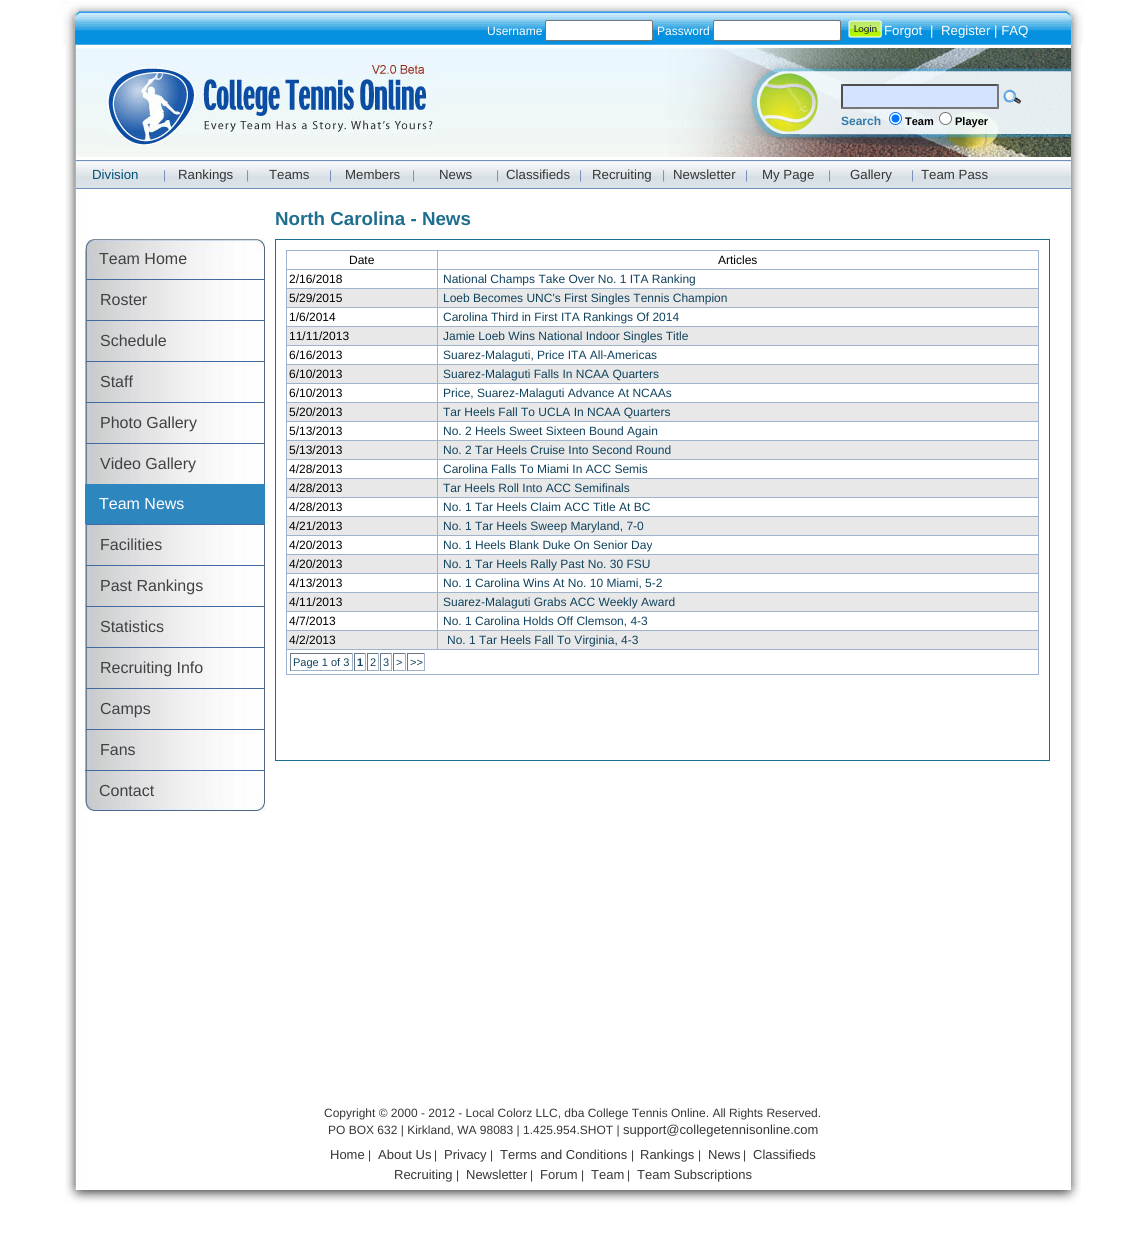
#include <cairo.h>
#include <math.h>
#include <stddef.h>

typedef struct { const char *family; double size; int italic, bold; unsigned color; } style_t;
static cairo_t *ctx;

static void ink(unsigned color) {
    cairo_set_source_rgb(ctx, (color >> 16) / 255.0, (color >> 8 & 255) / 255.0, (color & 255) / 255.0);
}

static void write(double x, double y, const char *s, const style_t *st) {
    cairo_select_font_face(ctx, st->family, st->italic ? CAIRO_FONT_SLANT_ITALIC : CAIRO_FONT_SLANT_NORMAL,
        st->bold ? CAIRO_FONT_WEIGHT_BOLD : CAIRO_FONT_WEIGHT_NORMAL);
    cairo_set_font_size(ctx, st->size);
    ink(st->color);
    cairo_move_to(ctx, x, y);
    cairo_show_text(ctx, s);
}

static void block(double x, double y, double w, double h, unsigned color) {
    ink(color);
    cairo_rectangle(ctx, x, y, w, h);
    cairo_fill(ctx);
}

static void round_path(double x, double y, double w, double h, double r) {
    cairo_new_sub_path(ctx);
    cairo_arc(ctx, x + w - r, y + h - r, r, 0, M_PI / 2);
    cairo_arc(ctx, x + r, y + h - r, r, M_PI / 2, M_PI);
    cairo_arc(ctx, x + r, y + r, r, M_PI, 1.5 * M_PI);
    cairo_arc(ctx, x + w - r, y + r, r, 1.5 * M_PI, 2 * M_PI);
    cairo_close_path(ctx);
}

static void paste(const char *path, double x, double y, double w, double h) {
    cairo_surface_t *image = cairo_image_surface_create_from_png(path);
    cairo_save(ctx);
    cairo_set_source_surface(ctx, image, x, y);
    cairo_rectangle(ctx, x, y, w, h);
    cairo_fill(ctx);
    cairo_restore(ctx);
    cairo_surface_destroy(image);
}

static const style_t s1 = {"Liberation Sans", 12, 0, 0, 0xffffff};
static const style_t s2 = {"Liberation Sans", 13.25, 0, 0, 0xffffff};
static const style_t s3 = {"Liberation Sans", 12, 0, 1, 0x337aa8};
static const style_t s4 = {"Liberation Sans", 11, 0, 1, 0x000000};
static const style_t s5 = {"Liberation Sans", 13.25, 0, 0, 0x014e78};
static const style_t s6 = {"Liberation Sans", 12, 0, 0, 0x728fbb};
static const style_t s7 = {"Liberation Sans", 13.25, 0, 0, 0x343635};
static const style_t s8 = {"Liberation Sans", 16, 0, 0, 0x404143};
static const style_t s9 = {"Liberation Sans", 16, 0, 0, 0xffffff};
static const style_t s10 = {"Liberation Sans", 18.75, 0, 1, 0x1f6e8f};
static const style_t s11 = {"Liberation Sans", 12, 0, 0, 0x000000};
static const style_t s12 = {"Liberation Sans", 12, 0, 0, 0x10425d};
static const style_t s13 = {"Liberation Sans", 11, 0, 0, 0x10425d};
static const style_t s14 = {"Liberation Sans", 11, 0, 1, 0x10425d};
static const style_t s15 = {"Liberation Sans", 12, 0, 0, 0x343635};
static const style_t s16 = {"Liberation Sans", 13, 0, 0, 0x343635};

int main(void) {
    cairo_surface_t *surface = cairo_image_surface_create(CAIRO_FORMAT_RGB24, 1146, 1256);
    ctx = cairo_create(surface);
    cairo_font_options_t *options = cairo_font_options_create();
    cairo_font_options_set_hint_metrics(options, CAIRO_HINT_METRICS_OFF);
    cairo_font_options_set_hint_style(options, CAIRO_HINT_STYLE_NONE);
    cairo_set_font_options(ctx, options);
    cairo_set_miter_limit(ctx, 4);
    ink(0xffffff);
    cairo_paint(ctx);
    paste("pic1.png", 65, 45, 1016, 1140);
    paste("pic2.png", 62, 0, 1023, 45);
    paste("pic3.png", 62, 4, 18, 41);
    write(487, 35, "Username", &s1);
    round_path(545.5, 20.5, 107, 20, 1.5);
    cairo_fill_preserve(ctx);
    ink(0x767676);
    cairo_set_line_width(ctx, 1);
    cairo_stroke(ctx);
    write(657, 35, "Password", &s1);
    round_path(713.5, 20.5, 127, 20, 1.5);
    cairo_fill_preserve(ctx);
    ink(0x767676);
    cairo_stroke(ctx);
    paste("pic4.png", 848, 20, 34, 18);
    write(884, 35, "Forgot", &s2);
    write(930, 35, "|", &s2);
    write(941, 35, "Register | FAQ", &s2);
    paste("pic5.png", 1066, 4, 19, 41);
    paste("pic6.png", 76, 48, 592, 109);
    paste("pic7.png", 106, 63, 330, 83);
    paste("pic8.png", 668, 48, 403, 109);
    block(841, 84, 158, 25, 0xd4e3ff);
    ink(0x4f4f4f);
    cairo_new_path(ctx);
    cairo_move_to(ctx, 841, 84);
    cairo_line_to(ctx, 999, 84);
    cairo_line_to(ctx, 997, 86);
    cairo_line_to(ctx, 843, 86);
    cairo_close_path(ctx);
    cairo_fill(ctx);
    ink(0x767676);
    cairo_new_path(ctx);
    cairo_move_to(ctx, 999, 84);
    cairo_line_to(ctx, 999, 109);
    cairo_line_to(ctx, 997, 107);
    cairo_line_to(ctx, 997, 86);
    cairo_close_path(ctx);
    cairo_fill(ctx);
    cairo_new_path(ctx);
    cairo_move_to(ctx, 999, 109);
    cairo_line_to(ctx, 841, 109);
    cairo_line_to(ctx, 843, 107);
    cairo_line_to(ctx, 997, 107);
    cairo_close_path(ctx);
    cairo_fill(ctx);
    ink(0x4f4f4f);
    cairo_new_path(ctx);
    cairo_move_to(ctx, 841, 109);
    cairo_line_to(ctx, 841, 84);
    cairo_line_to(ctx, 843, 86);
    cairo_line_to(ctx, 843, 107);
    cairo_close_path(ctx);
    cairo_fill(ctx);
    paste("pic9.png", 1003, 89, 18, 15);
    write(841, 125, "Search", &s3);
    ink(0xffffff);
    cairo_new_path(ctx);
    cairo_arc(ctx, 895.5, 118.5, 6, 0, 2 * M_PI);
    cairo_fill_preserve(ctx);
    ink(0x0075ff);
    cairo_stroke(ctx);
    cairo_arc(ctx, 895.5, 118.5, 4, 0, 2 * M_PI);
    cairo_fill(ctx);
    write(905, 125, "Team", &s4);
    ink(0xffffff);
    cairo_new_path(ctx);
    cairo_arc(ctx, 945.5, 118.5, 6, 0, 2 * M_PI);
    cairo_fill_preserve(ctx);
    ink(0x767676);
    cairo_stroke(ctx);
    write(955, 125, "Player", &s4);
    paste("pic10.png", 76, 161, 995, 27);
    block(76, 160, 995, 1, 0x728fbb);
    block(76, 188, 995, 1, 0x728fbb);
    write(92, 179, "Division", &s5);
    write(163, 179, "|", &s6);
    write(178, 179, "Rankings", &s7);
    write(246, 179, "|", &s6);
    write(269, 179, "Teams", &s7);
    write(329, 179, "|", &s6);
    write(345, 179, "Members", &s7);
    write(412, 179, "|", &s6);
    write(439, 179, "News", &s7);
    write(496, 179, "|", &s6);
    write(506, 179, "Classifieds", &s7);
    write(579, 179, "|", &s6);
    write(592, 179, "Recruiting", &s7);
    write(662, 179, "|", &s6);
    write(673, 179, "Newsletter", &s7);
    write(745, 179, "|", &s6);
    write(762, 179, "My Page", &s7);
    write(828, 179, "|", &s6);
    write(850, 179, "Gallery", &s7);
    write(911, 179, "|", &s6);
    write(921, 179, "Team Pass", &s7);
    paste("pic11.png", 85, 239, 180, 40);
    write(99, 264, "Team Home", &s8);
    paste("pic12.png", 85, 279, 180, 491);
    block(86, 279, 178, 1, 0x4269a2);
    write(100, 305, "Roster", &s8);
    block(86, 320, 178, 1, 0x4269a2);
    write(100, 346, "Schedule", &s8);
    block(86, 361, 178, 1, 0x4269a2);
    write(100, 387, "Staff", &s8);
    block(86, 402, 178, 1, 0x4269a2);
    write(100, 428, "Photo Gallery", &s8);
    block(86, 443, 178, 1, 0x4269a2);
    write(100, 469, "Video Gallery", &s8);
    block(85, 484, 180, 40, 0x2d86be);
    write(99, 509, "Team News", &s9);
    block(86, 524, 178, 1, 0x4269a2);
    write(100, 550, "Facilities", &s8);
    block(86, 565, 178, 1, 0x4269a2);
    write(100, 591, "Past Rankings", &s8);
    block(86, 606, 178, 1, 0x4269a2);
    write(100, 632, "Statistics", &s8);
    block(86, 647, 178, 1, 0x4269a2);
    write(100, 673, "Recruiting Info", &s8);
    block(86, 688, 178, 1, 0x4269a2);
    write(100, 714, "Camps", &s8);
    block(86, 729, 178, 1, 0x4269a2);
    write(100, 755, "Fans", &s8);
    paste("pic13.png", 85, 771, 180, 40);
    block(85, 770, 180, 1, 0x4269a2);
    write(99, 796, "Contact", &s8);
    write(275, 225, "North Carolina - News", &s10);
    cairo_rectangle(ctx, 275.5, 239.5, 774, 521);
    ink(0x1b6e8e);
    cairo_stroke(ctx);
    block(286, 250, 753, 1, 0x9fb3cc);
    block(1038, 250, 1, 425, 0x9fb3cc);
    block(286, 674, 753, 1, 0x9fb3cc);
    block(286, 250, 1, 425, 0x9fb3cc);
    write(349, 264, "Date", &s11);
    block(437, 269, 602, 1, 0x9fb3cc);
    block(437, 288, 602, 1, 0x9fb3cc);
    block(287, 289, 751, 18, 0xe8e8e8);
    block(437, 307, 602, 1, 0x9fb3cc);
    block(437, 326, 602, 1, 0x9fb3cc);
    block(287, 327, 751, 18, 0xe8e8e8);
    block(437, 345, 602, 1, 0x9fb3cc);
    block(437, 364, 602, 1, 0x9fb3cc);
    block(287, 365, 751, 18, 0xe8e8e8);
    block(437, 383, 602, 1, 0x9fb3cc);
    block(437, 402, 602, 1, 0x9fb3cc);
    block(287, 403, 751, 18, 0xe8e8e8);
    block(437, 421, 602, 1, 0x9fb3cc);
    block(437, 440, 602, 1, 0x9fb3cc);
    block(287, 441, 751, 18, 0xe8e8e8);
    block(437, 459, 602, 1, 0x9fb3cc);
    block(437, 478, 602, 1, 0x9fb3cc);
    block(287, 479, 751, 18, 0xe8e8e8);
    block(437, 497, 602, 1, 0x9fb3cc);
    block(437, 516, 602, 1, 0x9fb3cc);
    block(287, 517, 751, 18, 0xe8e8e8);
    block(437, 535, 602, 1, 0x9fb3cc);
    block(437, 554, 602, 1, 0x9fb3cc);
    block(287, 555, 751, 18, 0xe8e8e8);
    block(437, 573, 602, 1, 0x9fb3cc);
    block(437, 592, 602, 1, 0x9fb3cc);
    block(287, 593, 751, 18, 0xe8e8e8);
    block(437, 611, 602, 1, 0x9fb3cc);
    block(437, 630, 602, 1, 0x9fb3cc);
    block(287, 631, 751, 18, 0xe8e8e8);
    block(286, 649, 753, 1, 0x9fb3cc);
    block(437, 630, 1, 20, 0x9fb3cc);
    block(286, 630, 152, 1, 0x9fb3cc);
    block(437, 611, 1, 20, 0x9fb3cc);
    block(286, 611, 152, 1, 0x9fb3cc);
    block(437, 592, 1, 20, 0x9fb3cc);
    block(286, 592, 152, 1, 0x9fb3cc);
    block(437, 573, 1, 20, 0x9fb3cc);
    block(286, 573, 152, 1, 0x9fb3cc);
    block(437, 554, 1, 20, 0x9fb3cc);
    block(286, 554, 152, 1, 0x9fb3cc);
    block(437, 535, 1, 20, 0x9fb3cc);
    block(286, 535, 152, 1, 0x9fb3cc);
    block(437, 516, 1, 20, 0x9fb3cc);
    block(286, 516, 152, 1, 0x9fb3cc);
    block(437, 497, 1, 20, 0x9fb3cc);
    block(286, 497, 152, 1, 0x9fb3cc);
    block(437, 478, 1, 20, 0x9fb3cc);
    block(286, 478, 152, 1, 0x9fb3cc);
    block(437, 459, 1, 20, 0x9fb3cc);
    block(286, 459, 152, 1, 0x9fb3cc);
    block(437, 440, 1, 20, 0x9fb3cc);
    block(286, 440, 152, 1, 0x9fb3cc);
    block(437, 421, 1, 20, 0x9fb3cc);
    block(286, 421, 152, 1, 0x9fb3cc);
    block(437, 402, 1, 20, 0x9fb3cc);
    block(286, 402, 152, 1, 0x9fb3cc);
    block(437, 383, 1, 20, 0x9fb3cc);
    block(286, 383, 152, 1, 0x9fb3cc);
    block(437, 364, 1, 20, 0x9fb3cc);
    block(286, 364, 152, 1, 0x9fb3cc);
    block(437, 345, 1, 20, 0x9fb3cc);
    block(286, 345, 152, 1, 0x9fb3cc);
    block(437, 326, 1, 20, 0x9fb3cc);
    block(286, 326, 152, 1, 0x9fb3cc);
    block(437, 307, 1, 20, 0x9fb3cc);
    block(286, 307, 152, 1, 0x9fb3cc);
    block(437, 288, 1, 20, 0x9fb3cc);
    block(286, 288, 152, 1, 0x9fb3cc);
    block(437, 269, 1, 20, 0x9fb3cc);
    block(286, 269, 152, 1, 0x9fb3cc);
    block(437, 250, 1, 20, 0x9fb3cc);
    write(718, 264, "Articles", &s11);
    write(289, 283, "2/16/2018", &s11);
    write(443, 283, "National Champs Take Over No. 1 ITA Ranking", &s12);
    write(289, 302, "5/29/2015", &s11);
    write(443, 302, "Loeb Becomes UNC's First Singles Tennis Champion", &s12);
    write(289, 321, "1/6/2014", &s11);
    write(443, 321, "Carolina Third in First ITA Rankings Of 2014", &s12);
    write(289, 340, "11/11/2013", &s11);
    write(443, 340, "Jamie Loeb Wins National Indoor Singles Title", &s12);
    write(289, 359, "6/16/2013", &s11);
    write(443, 359, "Suarez-Malaguti, Price ITA All-Americas", &s12);
    write(289, 378, "6/10/2013", &s11);
    write(443, 378, "Suarez-Malaguti Falls In NCAA Quarters", &s12);
    write(289, 397, "6/10/2013", &s11);
    write(443, 397, "Price, Suarez-Malaguti Advance At NCAAs", &s12);
    write(289, 416, "5/20/2013", &s11);
    write(443, 416, "Tar Heels Fall To UCLA In NCAA Quarters", &s12);
    write(289, 435, "5/13/2013", &s11);
    write(443, 435, "No. 2 Heels Sweet Sixteen Bound Again", &s12);
    write(289, 454, "5/13/2013", &s11);
    write(443, 454, "No. 2 Tar Heels Cruise Into Second Round", &s12);
    write(289, 473, "4/28/2013", &s11);
    write(443, 473, "Carolina Falls To Miami In ACC Semis", &s12);
    write(289, 492, "4/28/2013", &s11);
    write(443, 492, "Tar Heels Roll Into ACC Semifinals", &s12);
    write(289, 511, "4/28/2013", &s11);
    write(443, 511, "No. 1 Tar Heels Claim ACC Title At BC", &s12);
    write(289, 530, "4/21/2013", &s11);
    write(443, 530, "No. 1 Tar Heels Sweep Maryland, 7-0", &s12);
    write(289, 549, "4/20/2013", &s11);
    write(443, 549, "No. 1 Heels Blank Duke On Senior Day", &s12);
    write(289, 568, "4/20/2013", &s11);
    write(443, 568, "No. 1 Tar Heels Rally Past No. 30 FSU", &s12);
    write(289, 587, "4/13/2013", &s11);
    write(443, 587, "No. 1 Carolina Wins At No. 10 Miami, 5-2", &s12);
    write(289, 606, "4/11/2013", &s11);
    write(443, 606, "Suarez-Malaguti Grabs ACC Weekly Award", &s12);
    write(289, 625, "4/7/2013", &s11);
    write(443, 625, "No. 1 Carolina Holds Off Clemson, 4-3", &s12);
    write(289, 644, "4/2/2013", &s11);
    write(447, 644, "No. 1 Tar Heels Fall To Virginia, 4-3", &s12);
    block(290, 653, 63, 1, 0x6a7788);
    block(352, 653, 1, 18, 0x9fb3cc);
    block(290, 670, 63, 1, 0x9fb3cc);
    block(290, 653, 1, 18, 0x6a7788);
    write(293, 666, "Page 1 of 3", &s13);
    block(354, 653, 12, 1, 0x6a7788);
    block(365, 653, 1, 18, 0x9fb3cc);
    block(354, 670, 12, 1, 0x9fb3cc);
    block(354, 653, 1, 18, 0x6a7788);
    write(357, 666, "1", &s14);
    block(367, 653, 12, 1, 0x6a7788);
    block(378, 653, 1, 18, 0x9fb3cc);
    block(367, 670, 12, 1, 0x9fb3cc);
    block(367, 653, 1, 18, 0x6a7788);
    write(370, 666, "2", &s13);
    block(380, 653, 12, 1, 0x6a7788);
    block(391, 653, 1, 18, 0x9fb3cc);
    block(380, 670, 12, 1, 0x9fb3cc);
    block(380, 653, 1, 18, 0x6a7788);
    write(383, 666, "3", &s13);
    block(393, 653, 13, 1, 0x6a7788);
    block(405, 653, 1, 18, 0x9fb3cc);
    block(393, 670, 13, 1, 0x9fb3cc);
    block(393, 653, 1, 18, 0x6a7788);
    write(396, 666, ">", &s13);
    block(407, 653, 18, 1, 0x6a7788);
    block(424, 653, 1, 18, 0x9fb3cc);
    block(407, 670, 18, 1, 0x9fb3cc);
    block(407, 653, 1, 18, 0x6a7788);
    write(410, 666, ">>", &s13);
    write(324, 1117, "Copyright © 2000 - 2012 - Local Colorz LLC, dba College Tennis Online. All Rights Reserved.", &s15);
    write(328, 1134, "PO BOX 632 | Kirkland, WA 98083 | 1.425.954.SHOT |", &s15);
    write(623, 1134, "support@collegetennisonline.com", &s16);
    write(330, 1159, "Home", &s16);
    write(368, 1159, "|", &s15);
    write(378, 1159, "About Us", &s16);
    write(434, 1159, "|", &s15);
    write(444, 1159, "Privacy", &s16);
    write(490, 1159, "|", &s15);
    write(500, 1159, "Terms and Conditions", &s16);
    write(631, 1159, "|", &s15);
    write(640, 1159, "Rankings", &s16);
    write(698, 1159, "|", &s15);
    write(708, 1159, "News", &s16);
    write(743, 1159, "|", &s15);
    write(753, 1159, "Classifieds", &s16);
    write(394, 1179, "Recruiting", &s16);
    write(456, 1179, "|", &s15);
    write(466, 1179, "Newsletter", &s16);
    write(530, 1179, "|", &s15);
    write(540, 1179, "Forum", &s16);
    write(581, 1179, "|", &s15);
    write(591, 1179, "Team", &s16);
    write(627, 1179, "|", &s15);
    write(637, 1179, "Team Subscriptions", &s16);
    paste("pic14.png", 65, 1185, 1016, 22);
    cairo_surface_write_to_png(surface, "screenshot.png");
    cairo_font_options_destroy(options);
    cairo_destroy(ctx);
    cairo_surface_destroy(surface);
    return 0;
}
